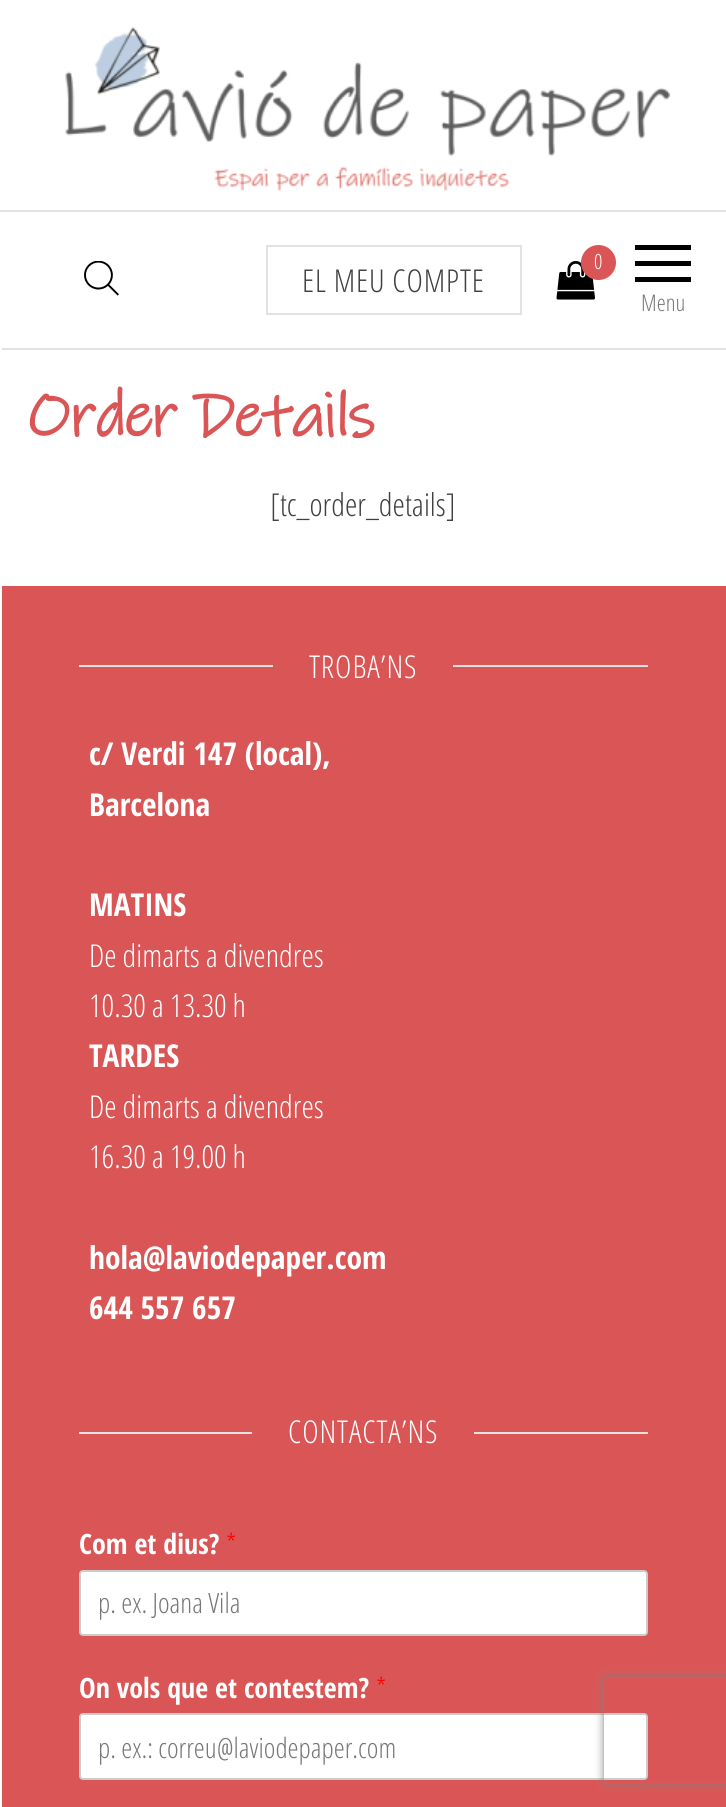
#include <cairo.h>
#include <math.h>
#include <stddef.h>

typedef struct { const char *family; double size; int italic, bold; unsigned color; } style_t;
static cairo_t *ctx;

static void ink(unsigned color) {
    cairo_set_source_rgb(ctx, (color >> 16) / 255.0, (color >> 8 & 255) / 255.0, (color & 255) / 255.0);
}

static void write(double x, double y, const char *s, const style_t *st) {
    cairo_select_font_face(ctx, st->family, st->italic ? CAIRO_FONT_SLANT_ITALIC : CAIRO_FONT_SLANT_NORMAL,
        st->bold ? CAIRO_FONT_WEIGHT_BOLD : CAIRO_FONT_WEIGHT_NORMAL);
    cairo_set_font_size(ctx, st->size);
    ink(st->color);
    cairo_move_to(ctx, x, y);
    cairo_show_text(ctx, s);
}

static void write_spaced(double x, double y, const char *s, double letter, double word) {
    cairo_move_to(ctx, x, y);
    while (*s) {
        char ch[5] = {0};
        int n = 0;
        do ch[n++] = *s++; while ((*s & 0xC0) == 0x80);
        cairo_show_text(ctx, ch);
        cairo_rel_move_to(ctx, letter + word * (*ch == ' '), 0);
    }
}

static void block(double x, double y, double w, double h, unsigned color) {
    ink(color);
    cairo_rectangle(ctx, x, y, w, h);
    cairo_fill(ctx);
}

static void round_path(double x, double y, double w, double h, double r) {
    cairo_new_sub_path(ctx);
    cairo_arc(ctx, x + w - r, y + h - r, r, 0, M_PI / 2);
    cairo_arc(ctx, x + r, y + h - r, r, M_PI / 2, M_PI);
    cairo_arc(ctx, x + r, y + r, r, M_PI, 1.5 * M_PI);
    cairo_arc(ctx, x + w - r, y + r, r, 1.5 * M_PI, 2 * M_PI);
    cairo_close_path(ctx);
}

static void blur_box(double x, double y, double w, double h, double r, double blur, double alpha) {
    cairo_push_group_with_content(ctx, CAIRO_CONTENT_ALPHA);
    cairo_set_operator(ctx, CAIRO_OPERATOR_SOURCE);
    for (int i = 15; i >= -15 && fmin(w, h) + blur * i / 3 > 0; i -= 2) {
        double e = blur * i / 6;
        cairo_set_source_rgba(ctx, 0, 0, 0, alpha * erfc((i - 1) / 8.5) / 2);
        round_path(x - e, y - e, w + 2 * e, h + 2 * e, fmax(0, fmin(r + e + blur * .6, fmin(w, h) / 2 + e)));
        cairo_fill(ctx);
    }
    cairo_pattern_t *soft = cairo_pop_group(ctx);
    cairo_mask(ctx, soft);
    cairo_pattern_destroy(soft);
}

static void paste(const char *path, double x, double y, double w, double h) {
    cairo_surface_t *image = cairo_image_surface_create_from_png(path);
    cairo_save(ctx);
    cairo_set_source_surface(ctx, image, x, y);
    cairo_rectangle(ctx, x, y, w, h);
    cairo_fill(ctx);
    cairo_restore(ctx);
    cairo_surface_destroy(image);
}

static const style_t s1 = {"Open Sans Condensed Light", 21, 0, 0, 0xffffff};
static const style_t s2 = {"Open Sans Condensed Light", 23, 0, 0, 0x777777};
static const style_t s3 = {"Open Sans Condensed Light", 31.5, 0, 0, 0x404040};
static const style_t s4 = {"Open Sans Condensed", 31.5, 0, 1, 0xffffff};
static const style_t s5 = {"Open Sans Condensed Light", 31.5, 0, 0, 0xffffff};
static const style_t s6 = {"Open Sans Condensed", 28, 0, 1, 0xffffff};
static const style_t s7 = {"Open Sans Condensed Light", 28, 0, 0, 0xff0000};
static const style_t s8 = {"Open Sans Condensed Light", 28, 0, 0, 0x777777};

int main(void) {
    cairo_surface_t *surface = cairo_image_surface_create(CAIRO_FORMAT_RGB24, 726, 1807);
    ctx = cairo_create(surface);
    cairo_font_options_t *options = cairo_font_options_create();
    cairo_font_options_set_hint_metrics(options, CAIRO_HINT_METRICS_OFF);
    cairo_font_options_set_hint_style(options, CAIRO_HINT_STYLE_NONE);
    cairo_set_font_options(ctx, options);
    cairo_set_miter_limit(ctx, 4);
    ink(0xffffff);
    cairo_paint(ctx);
    paste("pic1.png", 65, 27, 606, 164);
    block(0, 210, 726, 2, 0xe2e2e2);
    block(0, 348, 726, 2, 0xe2e2e2);
    paste("pic2.png", 84, 261, 35, 35);
    paste("pic3.png", 556, 261, 39, 39);
    ink(0xda5656);
    cairo_arc(ctx, 598.5, 262.5, 17.5, 0, 2 * M_PI);
    cairo_fill(ctx);
    write(594, 269, "0", &s1);
    block(635, 245, 56, 5, 0x000000);
    block(635, 261, 56, 5, 0x000000);
    block(635, 277, 56, 5, 0x000000);
    cairo_rectangle(ctx, 267, 246, 254, 68);
    ink(0xe2e2e2);
    cairo_stroke(ctx);
    cairo_set_font_size(ctx, 31.5);
    ink(0x404040);
    write_spaced(302, 292, "EL MEU COMPTE", 0.9, 0);
    write(641, 311, "Menu", &s2);
    block(0, 348, 2, 2, 0xffffff);
    cairo_select_font_face(ctx, "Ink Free", CAIRO_FONT_SLANT_NORMAL, CAIRO_FONT_WEIGHT_BOLD);
    cairo_set_font_size(ctx, 63);
    ink(0xda5656);
    write_spaced(26, 436, "Order Details", -1.25, 0);
    write(270, 516, "[tc_order_details]", &s3);
    block(2, 586, 724, 1221, 0xda5656);
    block(79, 665, 569, 2, 0xe2e2e2);
    block(273, 665, 180, 2, 0xda5656);
    ink(0xffffff);
    write_spaced(309, 678, "TROBA’NS", 0.9, 0);
    write(89, 765, "c/ Verdi 147 (local),", &s4);
    write(89, 816, "Barcelona", &s4);
    write(89, 916, "MATINS", &s4);
    write(89, 967, "De dimarts a divendres", &s5);
    write(89, 1017, "10.30 a 13.30 h", &s5);
    write(89, 1067, "TARDES", &s4);
    write(89, 1118, "De dimarts a divendres", &s5);
    write(89, 1168, "16.30 a 19.00 h", &s5);
    write(89, 1269, "hola@laviodepaper.com", &s4);
    write(89, 1319, "644 557 657", &s4);
    block(79, 1432, 569, 2, 0xe2e2e2);
    block(252, 1432, 222, 2, 0xda5656);
    cairo_select_font_face(ctx, "Open Sans Condensed Light", CAIRO_FONT_SLANT_NORMAL, CAIRO_FONT_WEIGHT_NORMAL);
    ink(0xffffff);
    write_spaced(288, 1443, "CONTACTA’NS", 0.9, 0);
    write(79, 1554, "Com et dius?", &s6);
    write(226, 1554, "*", &s7);
    ink(0xffffff);
    round_path(80, 1571, 567, 64, 3);
    cairo_fill_preserve(ctx);
    ink(0xcccccc);
    cairo_stroke(ctx);
    write(98, 1613, "p. ex. Joana Vila", &s8);
    write(79, 1698, "On vols que et contestem?", &s6);
    write(376, 1698, "*", &s7);
    ink(0xffffff);
    round_path(80, 1714, 567, 65, 3);
    cairo_fill_preserve(ctx);
    ink(0xcccccc);
    cairo_stroke(ctx);
    write(98, 1758, "p. ex.: correu@laviodepaper.com", &s8);
    cairo_save(ctx);
    cairo_set_fill_rule(ctx, CAIRO_FILL_RULE_EVEN_ODD);
    cairo_new_path(ctx);
    cairo_move_to(ctx, 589, 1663);
    cairo_line_to(ctx, 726, 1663);
    cairo_line_to(ctx, 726, 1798);
    cairo_line_to(ctx, 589, 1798);
    cairo_close_path(ctx);
    cairo_move_to(ctx, 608, 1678);
    cairo_line_to(ctx, 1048, 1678);
    cairo_curve_to(ctx, 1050, 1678, 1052, 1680, 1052, 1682);
    cairo_line_to(ctx, 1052, 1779);
    cairo_curve_to(ctx, 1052, 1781, 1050, 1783, 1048, 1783);
    cairo_line_to(ctx, 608, 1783);
    cairo_curve_to(ctx, 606, 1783, 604, 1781, 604, 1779);
    cairo_line_to(ctx, 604, 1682);
    cairo_curve_to(ctx, 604, 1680, 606, 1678, 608, 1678);
    cairo_close_path(ctx);
    cairo_clip(ctx);
    ink(0x808080);
    blur_box(604, 1678, 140, 105, 4, 4.5, 1);
    cairo_restore(ctx);
    cairo_surface_write_to_png(surface, "screenshot.png");
    cairo_font_options_destroy(options);
    cairo_destroy(ctx);
    cairo_surface_destroy(surface);
    return 0;
}
